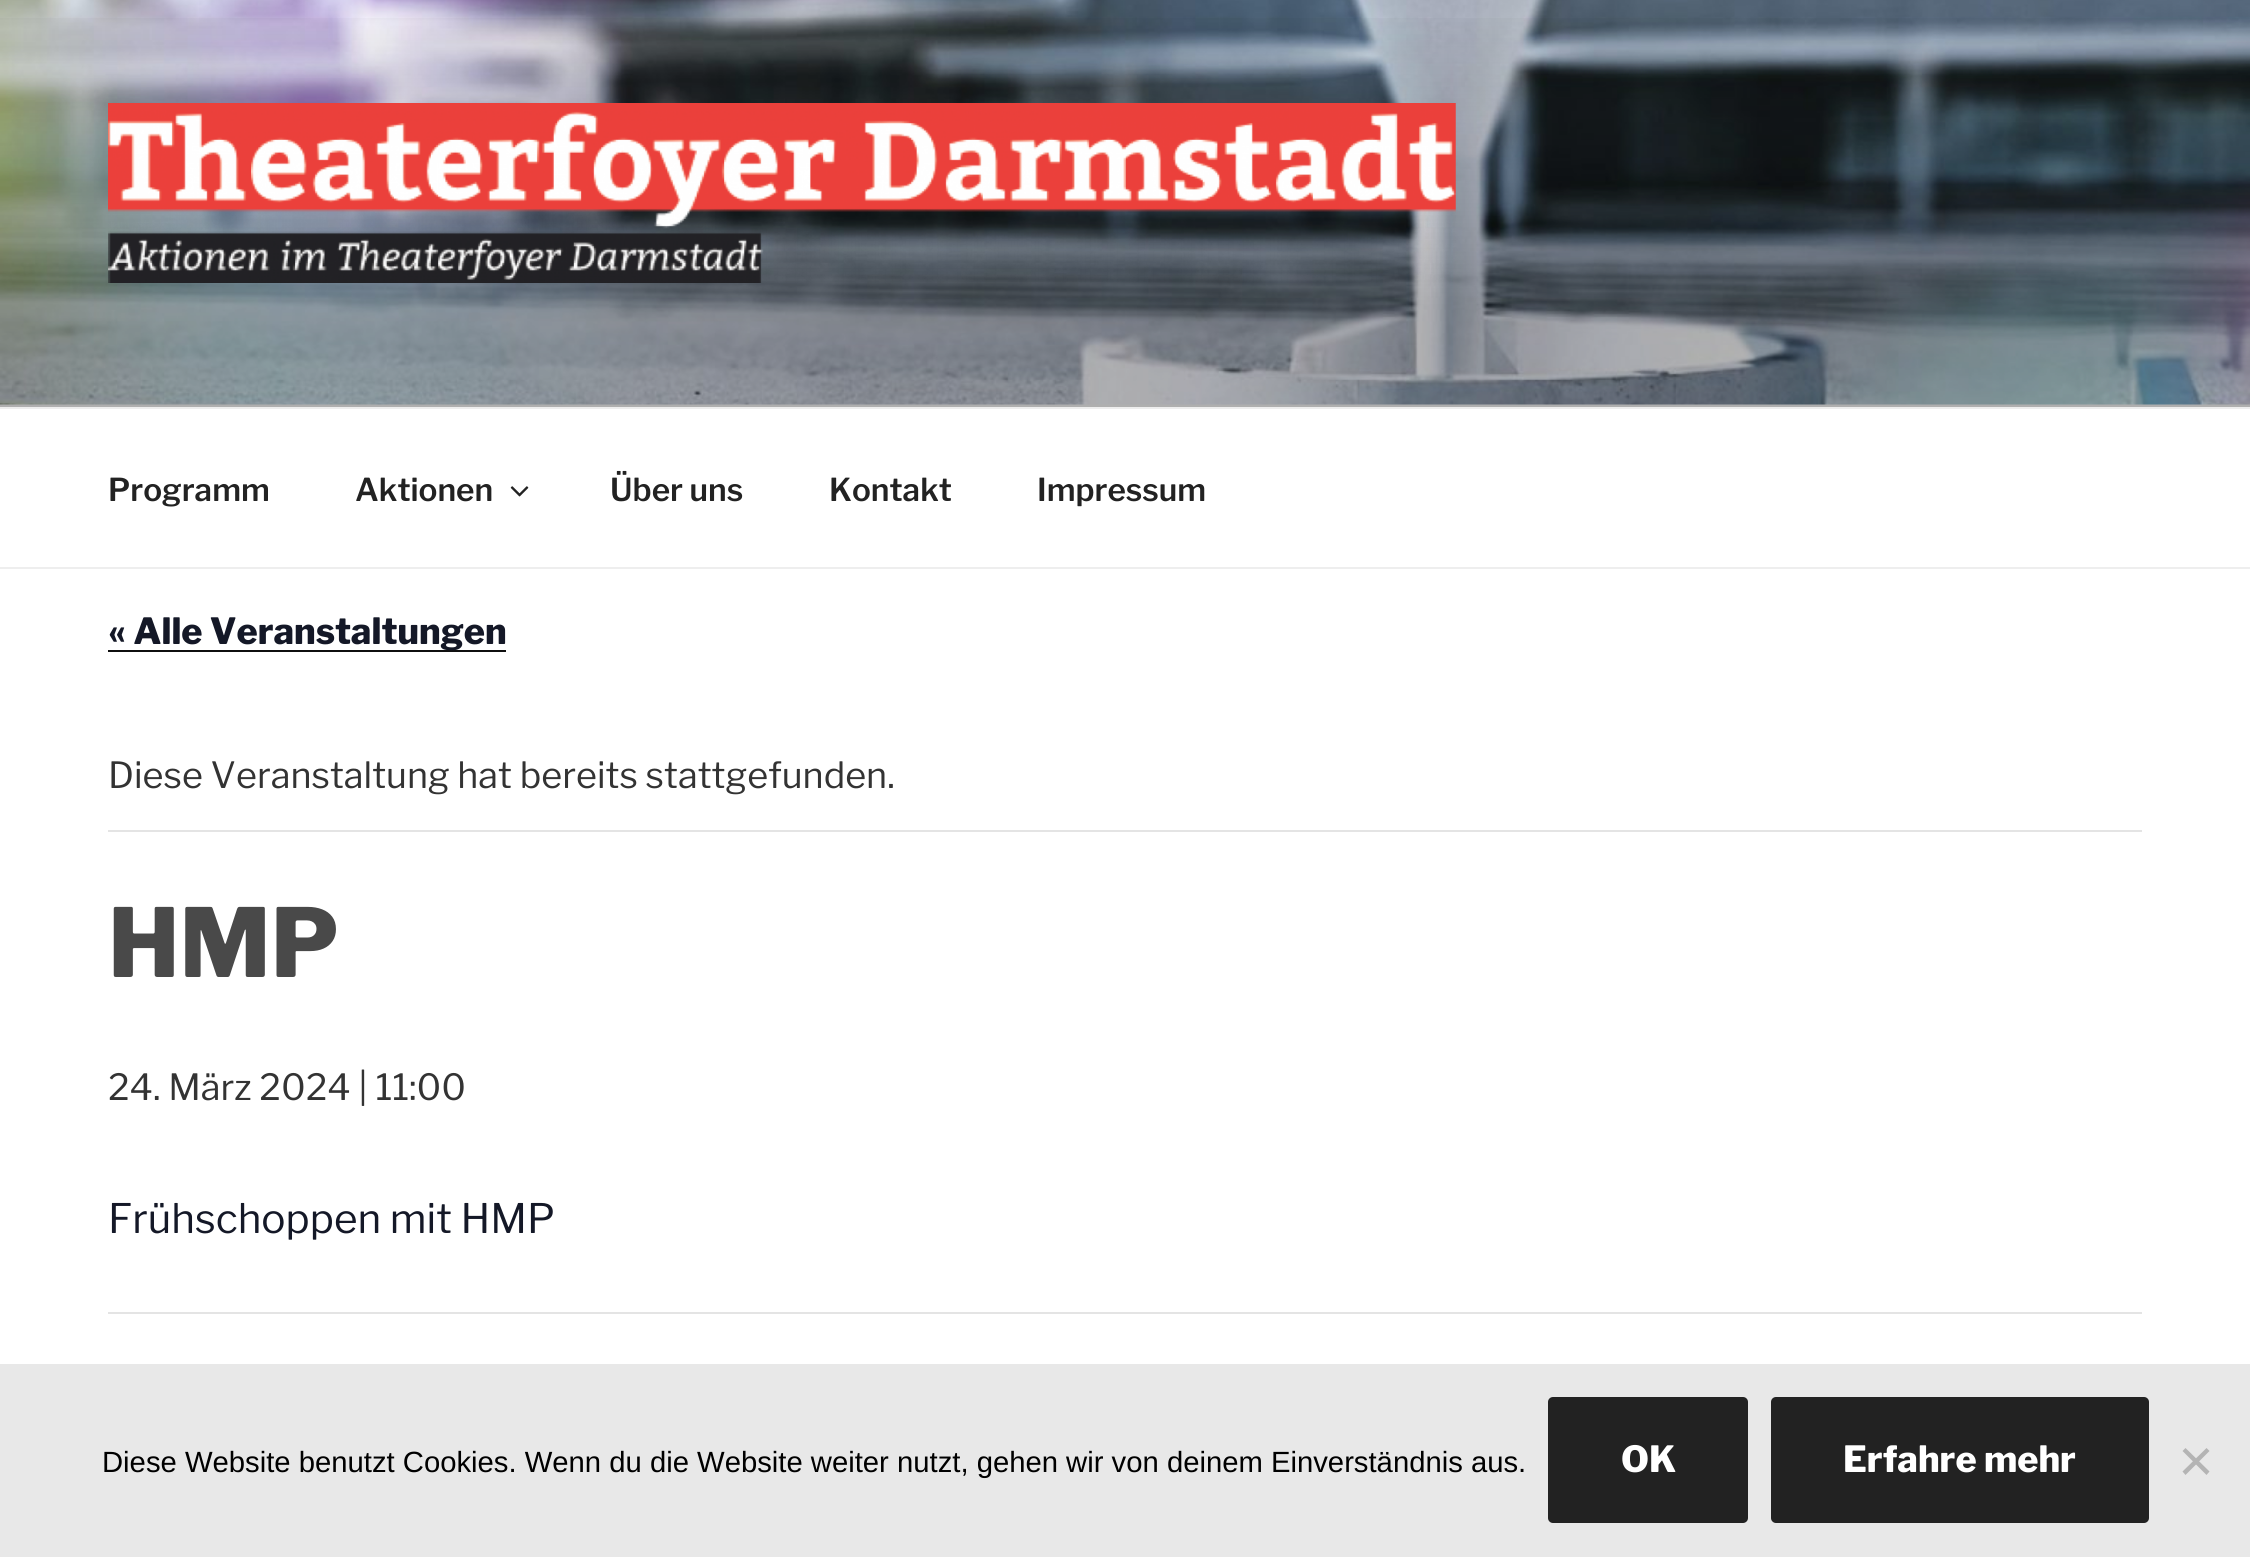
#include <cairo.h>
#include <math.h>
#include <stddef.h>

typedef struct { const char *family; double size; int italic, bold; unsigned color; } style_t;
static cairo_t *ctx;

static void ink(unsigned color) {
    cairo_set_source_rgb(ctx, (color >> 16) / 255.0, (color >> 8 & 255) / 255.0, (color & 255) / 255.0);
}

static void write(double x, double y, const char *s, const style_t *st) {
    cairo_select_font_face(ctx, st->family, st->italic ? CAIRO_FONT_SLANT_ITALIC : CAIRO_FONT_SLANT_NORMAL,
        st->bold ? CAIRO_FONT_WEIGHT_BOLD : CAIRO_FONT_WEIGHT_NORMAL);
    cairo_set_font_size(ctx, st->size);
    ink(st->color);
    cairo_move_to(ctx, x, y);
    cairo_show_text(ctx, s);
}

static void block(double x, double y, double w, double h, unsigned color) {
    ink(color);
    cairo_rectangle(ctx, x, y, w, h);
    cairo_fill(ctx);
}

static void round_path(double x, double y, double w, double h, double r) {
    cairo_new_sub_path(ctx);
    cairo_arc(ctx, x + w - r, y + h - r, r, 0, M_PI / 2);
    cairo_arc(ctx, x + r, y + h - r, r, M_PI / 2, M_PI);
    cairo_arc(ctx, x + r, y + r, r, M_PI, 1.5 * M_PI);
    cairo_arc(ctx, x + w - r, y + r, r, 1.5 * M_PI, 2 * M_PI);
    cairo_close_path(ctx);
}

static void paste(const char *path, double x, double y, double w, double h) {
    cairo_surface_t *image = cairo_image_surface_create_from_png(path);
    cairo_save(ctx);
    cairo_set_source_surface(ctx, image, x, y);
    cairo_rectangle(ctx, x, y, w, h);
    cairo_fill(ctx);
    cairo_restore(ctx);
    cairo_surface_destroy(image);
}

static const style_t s1 = {"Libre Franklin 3 Thin", 31.5, 0, 0, 0x222222};
static const style_t s2 = {"Libre Franklin Thin", 36, 0, 0, 0x141827};
static const style_t s3 = {"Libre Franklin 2 Thin", 36, 0, 0, 0x333333};
static const style_t s4 = {"Libre Franklin Thin", 94.5, 0, 0, 0x494949};
static const style_t s5 = {"Libre Franklin 2 Thin", 40.5, 0, 0, 0x141827};
static const style_t s6 = {"Liberation Sans", 29.25, 0, 0, 0x000000};
static const style_t s7 = {"Libre Franklin Thin", 36, 0, 0, 0xffffff};

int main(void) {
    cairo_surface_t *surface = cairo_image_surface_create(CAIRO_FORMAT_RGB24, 2250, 1557);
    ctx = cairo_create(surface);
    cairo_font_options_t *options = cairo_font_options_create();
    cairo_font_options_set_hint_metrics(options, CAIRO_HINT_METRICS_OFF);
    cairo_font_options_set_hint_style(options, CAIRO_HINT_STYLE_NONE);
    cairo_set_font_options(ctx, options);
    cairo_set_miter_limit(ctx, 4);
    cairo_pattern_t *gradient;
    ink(0xffffff);
    cairo_paint(ctx);
    block(0, 404, 2250, 3, 0xfafafa);
    paste("pic1.png", 0, 0, 2250, 405);
    gradient = cairo_pattern_create_linear(1125, -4.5, 1125, 407);
    cairo_pattern_add_color_stop_rgba(gradient, 0, 0, 0, 0, 0);
    cairo_pattern_add_color_stop_rgba(gradient, 0.75, 0, 0, 0, 0.3);
    cairo_pattern_add_color_stop_rgba(gradient, 1, 0, 0, 0, 0.3);
    cairo_set_source(ctx, gradient);
    cairo_pattern_destroy(gradient);
    cairo_rectangle(ctx, 0, 18, 2250, 389);
    cairo_fill(ctx);
    paste("pic2.png", 108, 103, 1348, 180);
    block(0, 407, 2250, 2, 0xeeeeee);
    block(0, 567, 2250, 2, 0xeeeeee);
    write(108, 501, "Programm", &s1);
    write(355, 501, "Aktionen", &s1);
    paste("pic3.png", 510, 486, 19, 11);
    write(610, 501, "Über uns", &s1);
    write(829, 501, "Kontakt", &s1);
    write(1037, 501, "Impressum", &s1);
    block(108, 650, 398, 2, 0x0f0f0f);
    write(108, 644, "« Alle Veranstaltungen", &s2);
    block(108, 830, 2034, 2, 0xe4e4e4);
    write(108, 788, "Diese Veranstaltung hat bereits stattgefunden.", &s3);
    write(108, 977, "HMP", &s4);
    write(108, 1100, "24. März 2024 | 11:00", &s3);
    write(108, 1233, "Frühschoppen mit HMP", &s5);
    block(108, 1312, 2034, 2, 0xe4e4e4);
    block(0, 1364, 2250, 193, 0xe8e8e8);
    write(102, 1472, "Diese Website benutzt Cookies. Wenn du die Website weiter nutzt, gehen wir von deinem Einverständnis aus.", &s6);
    ink(0x222222);
    round_path(1548, 1397, 200, 126, 5);
    cairo_fill(ctx);
    write(1621, 1472, "OK", &s7);
    ink(0x222222);
    round_path(1771, 1397, 378, 126, 5);
    cairo_fill(ctx);
    write(1843, 1472, "Erfahre mehr", &s7);
    ink(0xb4b4b4);
    cairo_new_path(ctx);
    cairo_move_to(ctx, 2206.5, 1448);
    cairo_line_to(ctx, 2209.5, 1451);
    cairo_line_to(ctx, 2185.5, 1475);
    cairo_line_to(ctx, 2182.5, 1471.5);
    cairo_close_path(ctx);
    cairo_fill(ctx);
    cairo_new_path(ctx);
    cairo_move_to(ctx, 2182.5, 1451);
    cairo_line_to(ctx, 2185.5, 1448);
    cairo_line_to(ctx, 2209.5, 1471.5);
    cairo_line_to(ctx, 2206.5, 1475);
    cairo_close_path(ctx);
    cairo_fill(ctx);
    cairo_surface_write_to_png(surface, "screenshot.png");
    cairo_font_options_destroy(options);
    cairo_destroy(ctx);
    cairo_surface_destroy(surface);
    return 0;
}
